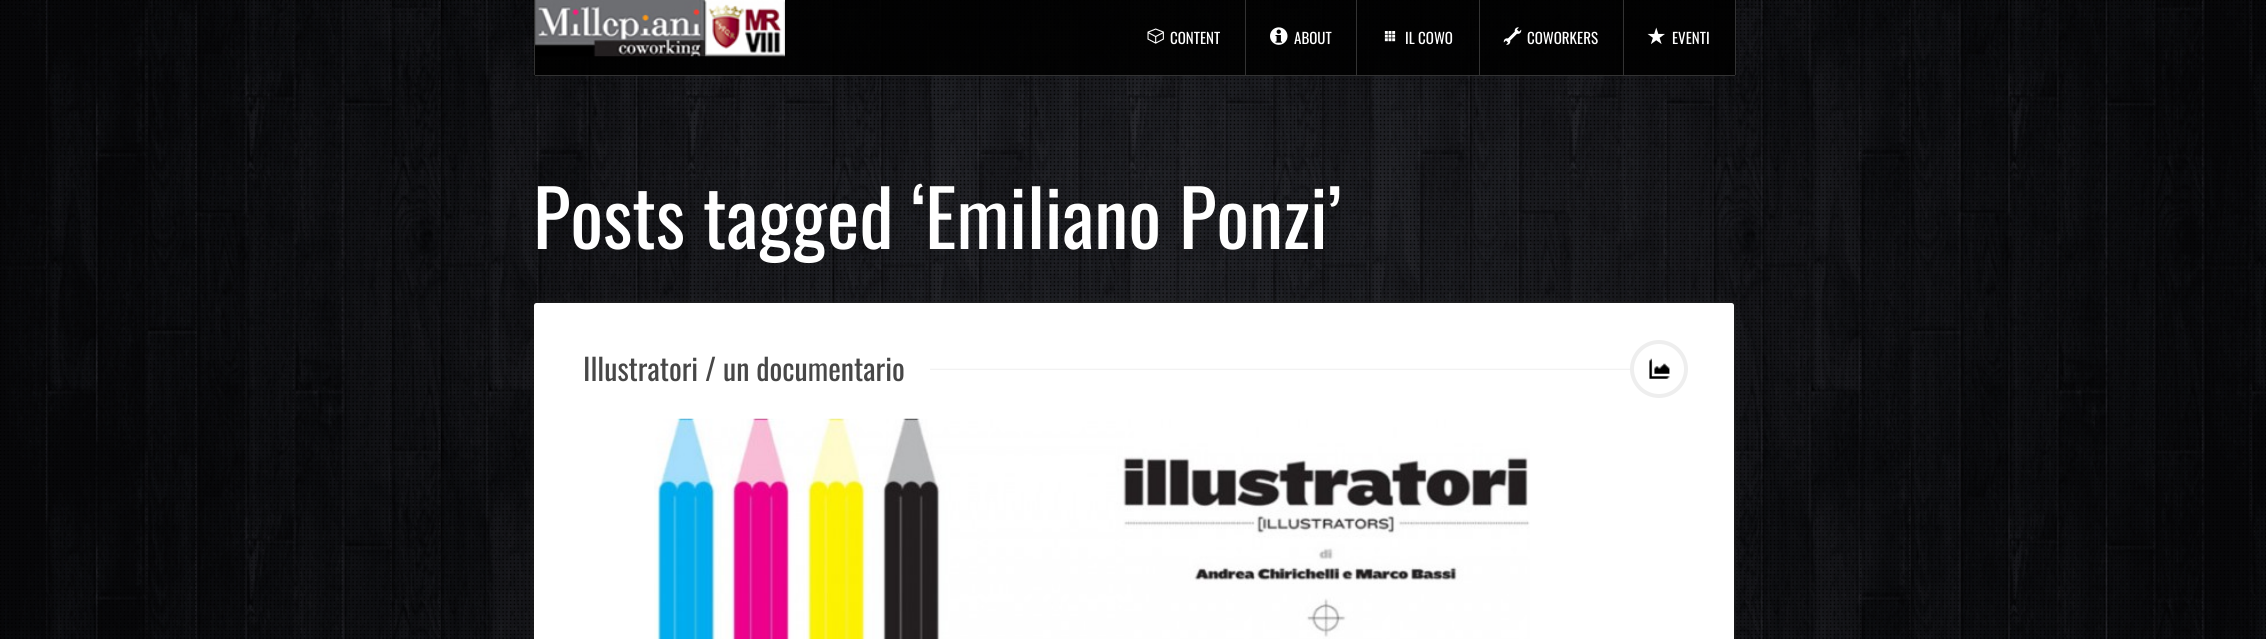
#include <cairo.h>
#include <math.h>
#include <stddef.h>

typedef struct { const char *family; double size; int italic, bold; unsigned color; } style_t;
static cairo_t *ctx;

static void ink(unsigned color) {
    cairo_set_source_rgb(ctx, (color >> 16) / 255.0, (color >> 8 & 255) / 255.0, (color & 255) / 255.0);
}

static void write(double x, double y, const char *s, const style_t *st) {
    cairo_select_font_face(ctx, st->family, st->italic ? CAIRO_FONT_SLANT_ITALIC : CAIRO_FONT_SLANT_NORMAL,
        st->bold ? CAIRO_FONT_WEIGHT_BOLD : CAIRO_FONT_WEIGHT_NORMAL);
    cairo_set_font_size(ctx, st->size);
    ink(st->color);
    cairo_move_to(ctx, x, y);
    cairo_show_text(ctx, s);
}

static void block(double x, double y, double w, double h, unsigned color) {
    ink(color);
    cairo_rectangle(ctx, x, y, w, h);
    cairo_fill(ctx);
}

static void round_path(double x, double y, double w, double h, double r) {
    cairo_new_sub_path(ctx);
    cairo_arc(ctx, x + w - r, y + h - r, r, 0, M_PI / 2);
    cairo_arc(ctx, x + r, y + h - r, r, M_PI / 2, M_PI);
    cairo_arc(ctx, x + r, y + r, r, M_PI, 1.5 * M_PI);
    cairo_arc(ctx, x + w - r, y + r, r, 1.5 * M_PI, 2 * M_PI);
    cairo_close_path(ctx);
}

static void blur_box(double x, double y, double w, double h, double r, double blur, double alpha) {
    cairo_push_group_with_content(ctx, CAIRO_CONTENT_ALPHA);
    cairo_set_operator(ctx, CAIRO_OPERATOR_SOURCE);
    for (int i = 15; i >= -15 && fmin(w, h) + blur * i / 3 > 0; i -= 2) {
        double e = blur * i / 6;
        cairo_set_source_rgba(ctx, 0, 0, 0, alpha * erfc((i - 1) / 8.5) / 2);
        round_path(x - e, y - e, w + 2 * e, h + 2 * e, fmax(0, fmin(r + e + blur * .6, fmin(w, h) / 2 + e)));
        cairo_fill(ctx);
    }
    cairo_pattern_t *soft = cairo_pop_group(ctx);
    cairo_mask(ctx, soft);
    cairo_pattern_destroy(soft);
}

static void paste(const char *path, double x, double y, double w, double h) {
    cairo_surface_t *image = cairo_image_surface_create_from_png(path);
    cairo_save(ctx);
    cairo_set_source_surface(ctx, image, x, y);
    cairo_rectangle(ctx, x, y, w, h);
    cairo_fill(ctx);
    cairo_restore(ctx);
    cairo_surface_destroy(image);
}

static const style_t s1 = {"Oswald", 15, 0, 0, 0xffffff};
static const style_t s2 = {"Oswald", 77.5, 0, 0, 0xffffff};
static const style_t s3 = {"Oswald", 30, 0, 0, 0x474747};

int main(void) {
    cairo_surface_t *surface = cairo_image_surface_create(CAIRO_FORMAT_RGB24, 2266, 639);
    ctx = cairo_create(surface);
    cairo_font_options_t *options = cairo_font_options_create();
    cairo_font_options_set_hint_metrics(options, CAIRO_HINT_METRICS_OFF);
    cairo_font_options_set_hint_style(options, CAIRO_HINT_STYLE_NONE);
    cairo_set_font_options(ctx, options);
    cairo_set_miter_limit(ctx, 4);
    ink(0xffffff);
    cairo_paint(ctx);
    paste("pic1.png", 0, 0, 1, 639);
    paste("pic3.png", 1, 0, 2265, 639);
    paste("pic2.png", 0, 0, 2266, 639);
    cairo_set_source_rgba(ctx, 0, 0, 0, 0.9);
    cairo_new_path(ctx);
    cairo_move_to(ctx, 534, 0);
    cairo_line_to(ctx, 1736, 0);
    cairo_line_to(ctx, 1736, 73.5);
    cairo_curve_to(ctx, 1736, 75, 1735, 76, 1733.5, 76);
    cairo_line_to(ctx, 536.5, 76);
    cairo_curve_to(ctx, 535, 76, 534, 75, 534, 73.5);
    cairo_close_path(ctx);
    cairo_fill(ctx);
    block(1735, 0, 1, 75, 0x333333);
    block(535, 75, 1200, 1, 0x333333);
    block(534, 0, 1, 75, 0x333333);
    paste("pic4.png", 535, 0, 250, 57);
    paste("pic5.png", 1147, 28, 17, 16);
    write(1170, 44, "CONTENT", &s1);
    paste("pic6.png", 1270, 27, 18, 18);
    block(1245, 0, 1, 75, 0x333333);
    write(1294, 44, "ABOUT", &s1);
    paste("pic7.png", 1384, 31, 12, 11);
    block(1356, 0, 1, 75, 0x333333);
    write(1405, 44, "IL COWO", &s1);
    paste("pic8.png", 1503, 27, 19, 18);
    block(1479, 0, 1, 75, 0x333333);
    write(1527, 44, "COWORKERS", &s1);
    paste("pic9.png", 1647, 27, 18, 17);
    block(1623, 0, 1, 75, 0x333333);
    write(1672, 44, "EVENTI", &s1);
    write(533, 249, "Posts tagged ‘Emiliano Ponzi’", &s2);
    ink(0x222222);
    blur_box(534, 303, 1200, 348, 2.5, 3, 1);
    ink(0xffffff);
    round_path(534, 303, 1200, 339, 2.5);
    cairo_fill(ctx);
    paste("pic10.png", 583, 368, 1048, 2);
    block(584, 368, 346, 2, 0xffffff);
    write(583, 381, "Illustratori / un documentario", &s3);
    ink(0xffffff);
    cairo_new_path(ctx);
    cairo_arc(ctx, 1659, 369, 29, 0, 2 * M_PI);
    cairo_fill(ctx);
    paste("pic11.png", 1649, 358, 21, 21);
    cairo_arc(ctx, 1659, 369, 27, 0, 2 * M_PI);
    ink(0xeeeeee);
    cairo_set_line_width(ctx, 4);
    cairo_stroke(ctx);
    paste("pic12.png", 654, 418, 876, 221);
    cairo_surface_write_to_png(surface, "screenshot.png");
    cairo_font_options_destroy(options);
    cairo_destroy(ctx);
    cairo_surface_destroy(surface);
    return 0;
}
